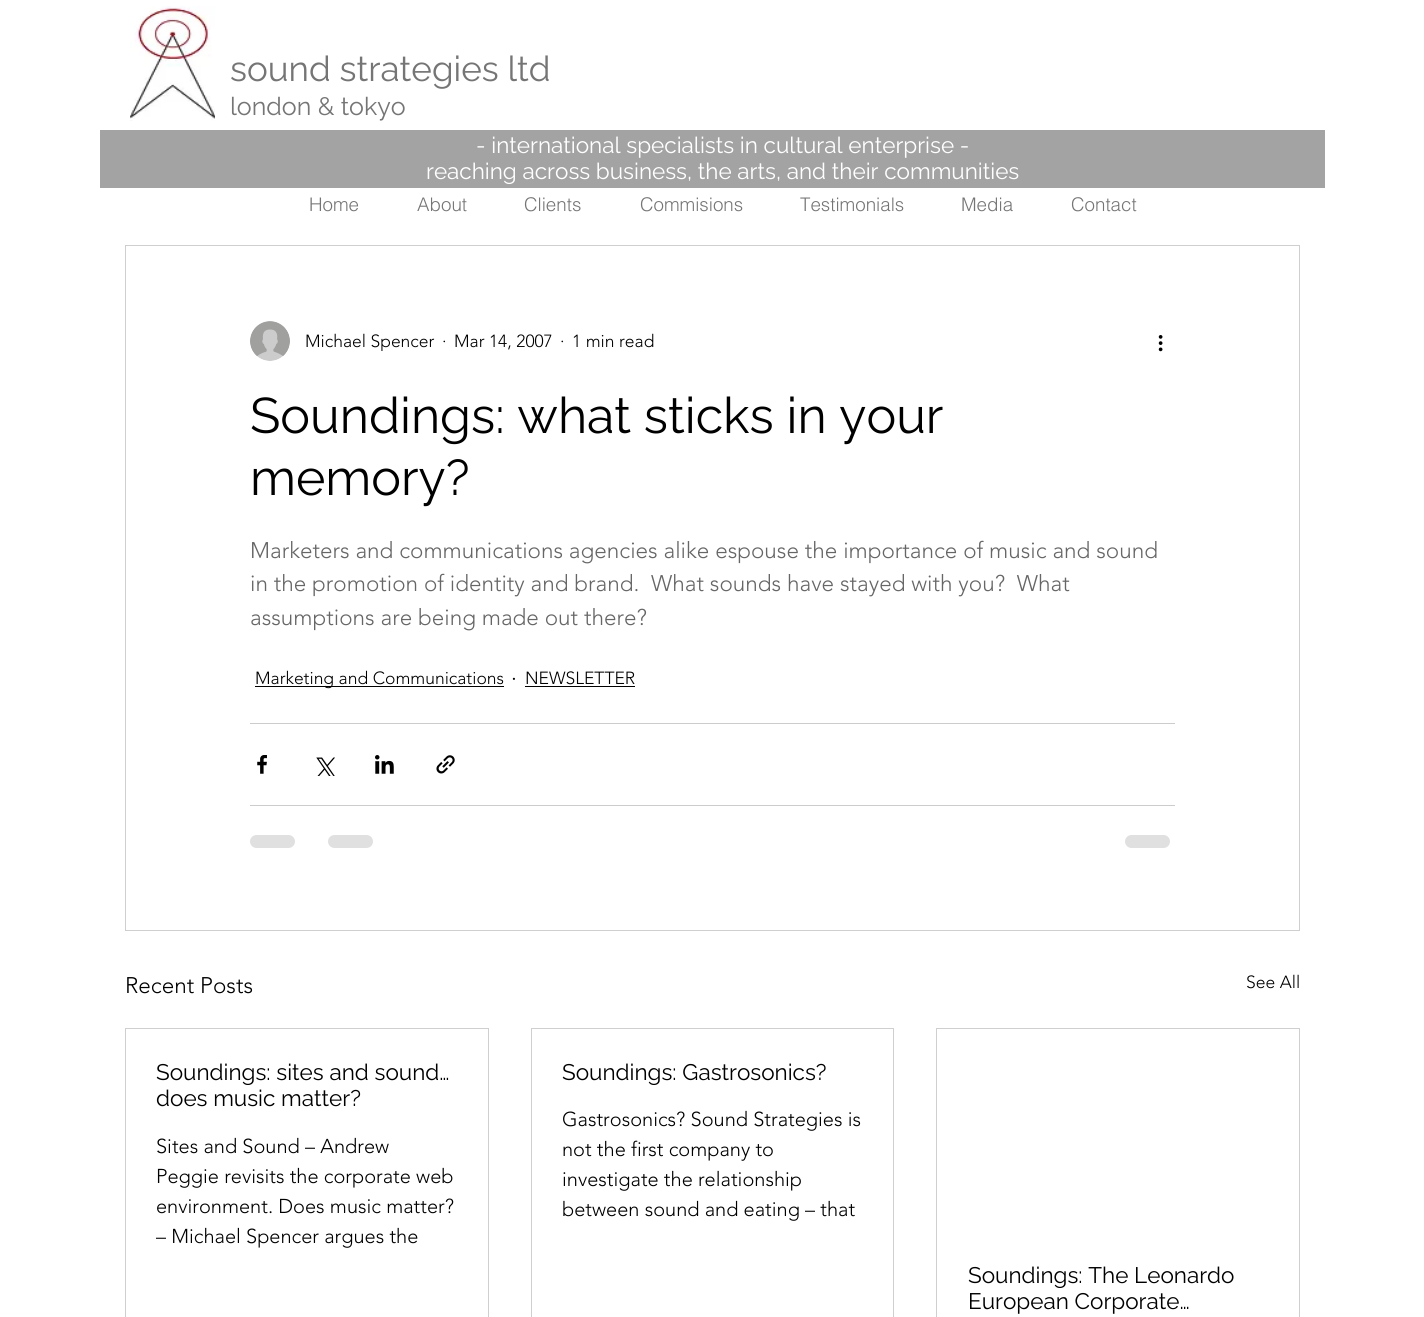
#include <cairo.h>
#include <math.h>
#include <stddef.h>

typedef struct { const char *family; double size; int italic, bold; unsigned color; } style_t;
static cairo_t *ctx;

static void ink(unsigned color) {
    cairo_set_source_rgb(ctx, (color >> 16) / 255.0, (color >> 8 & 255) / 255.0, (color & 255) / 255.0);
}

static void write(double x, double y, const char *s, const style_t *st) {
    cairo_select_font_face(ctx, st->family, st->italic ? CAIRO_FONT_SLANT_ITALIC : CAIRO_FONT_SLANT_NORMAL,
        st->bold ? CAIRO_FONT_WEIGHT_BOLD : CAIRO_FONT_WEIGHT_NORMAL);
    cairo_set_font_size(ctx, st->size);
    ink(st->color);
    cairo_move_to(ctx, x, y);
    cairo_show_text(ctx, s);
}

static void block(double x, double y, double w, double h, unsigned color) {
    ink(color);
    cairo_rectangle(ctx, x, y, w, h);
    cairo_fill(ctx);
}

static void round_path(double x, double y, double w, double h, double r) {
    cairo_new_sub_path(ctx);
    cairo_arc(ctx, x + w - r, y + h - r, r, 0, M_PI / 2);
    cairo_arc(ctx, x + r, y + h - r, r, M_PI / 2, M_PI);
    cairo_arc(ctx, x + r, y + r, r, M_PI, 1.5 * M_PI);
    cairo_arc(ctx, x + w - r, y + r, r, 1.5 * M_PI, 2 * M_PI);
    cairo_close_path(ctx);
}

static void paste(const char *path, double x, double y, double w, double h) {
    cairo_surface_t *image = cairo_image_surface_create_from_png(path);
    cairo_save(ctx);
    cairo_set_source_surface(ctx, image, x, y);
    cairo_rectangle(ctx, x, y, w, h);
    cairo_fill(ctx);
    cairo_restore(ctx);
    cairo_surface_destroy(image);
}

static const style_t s1 = {"Raleway", 35, 0, 0, 0x757575};
static const style_t s2 = {"Raleway", 25, 0, 0, 0x757575};
static const style_t s3 = {"Raleway", 22.5, 0, 0, 0xffffff};
static const style_t s4 = {"helvetica Light", 18.75, 0, 0, 0x757575};
static const style_t s5 = {"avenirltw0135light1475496 Light", 17.5, 0, 0, 0x000000};
static const style_t s6 = {"Raleway", 50, 0, 0, 0x000000};
static const style_t s7 = {"avenirltw0135light1475496 Light", 22.5, 0, 0, 0x666666};
static const style_t s8 = {"avenirltw0135light1475496 Light", 22.5, 0, 0, 0x000000};
static const style_t s9 = {"Raleway", 22.5, 0, 0, 0x000000};
static const style_t s10 = {"avenirltw0135light1475496 Light", 20, 0, 0, 0x000000};

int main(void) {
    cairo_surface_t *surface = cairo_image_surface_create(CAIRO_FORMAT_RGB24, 1424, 1317);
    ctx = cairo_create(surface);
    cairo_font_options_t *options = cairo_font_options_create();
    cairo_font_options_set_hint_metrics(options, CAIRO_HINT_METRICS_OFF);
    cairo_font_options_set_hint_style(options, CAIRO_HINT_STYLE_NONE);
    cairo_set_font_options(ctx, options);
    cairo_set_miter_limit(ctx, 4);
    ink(0xffffff);
    cairo_paint(ctx);
    paste("pic1.png", 130, 6, 85, 115);
    write(230, 81, "sound strategies ltd", &s1);
    write(230, 115, "london & tokyo", &s2);
    block(100, 130, 1225, 58, 0xa3a3a3);
    write(476, 153, "- international specialists in cultural enterprise -", &s3);
    write(426, 179, "reaching across business, the arts, and their communities", &s3);
    write(309, 211, "Home", &s4);
    write(417, 211, "About", &s4);
    write(524, 211, "Clients", &s4);
    write(640, 211, "Commisions", &s4);
    write(800, 211, "Testimonials", &s4);
    write(961, 211, "Media", &s4);
    write(1071, 211, "Contact", &s4);
    cairo_rectangle(ctx, 125.5, 245.5, 1174, 685);
    ink(0xcfcfcf);
    cairo_set_line_width(ctx, 1);
    cairo_stroke(ctx);
    paste("pic2.png", 250, 321, 40, 40);
    write(305, 347, "Michael Spencer", &s5);
    write(442, 347, "·", &s5);
    write(454, 347, "Mar 14, 2007", &s5);
    write(560, 347, "·", &s5);
    write(572, 347, "1 min read", &s5);
    paste("pic3.png", 1158, 335, 5, 17);
    write(250, 433, "Soundings: what sticks in your", &s6);
    write(250, 495, "memory?", &s6);
    write(250, 558, "Marketers and communications agencies alike espouse the importance of music and sound", &s7);
    write(250, 591, "in the promotion of identity and brand.  What sounds have stayed with you?  What", &s7);
    write(250, 625, "assumptions are being made out there?", &s7);
    block(255, 686, 249, 1, 0x000000);
    write(255, 684, "Marketing and Communications", &s5);
    write(511, 686, "·", &s8);
    write(525, 684, "NEWSLETTER", &s5);
    block(525, 686, 110, 1, 0x000000);
    block(250, 723, 925, 1, 0xcccccc);
    paste("pic4.png", 257, 755, 10, 19);
    paste("pic5.png", 316, 757, 19, 19);
    paste("pic6.png", 375, 755, 19, 19);
    paste("pic7.png", 436, 755, 19, 19);
    block(250, 805, 925, 1, 0xcccccc);
    ink(0xe0e0e0);
    round_path(250, 835, 45, 13, 6.5);
    cairo_fill(ctx);
    round_path(328, 835, 45, 13, 6.5);
    cairo_fill(ctx);
    round_path(1125, 835, 45, 13, 6.5);
    cairo_fill(ctx);
    write(125, 993, "Recent Posts", &s8);
    write(1246, 988, "See All", &s5);
    cairo_rectangle(ctx, 125.5, 1028.5, 363, 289);
    ink(0xcfcfcf);
    cairo_stroke(ctx);
    write(156, 1080, "Soundings: sites and sound…", &s9);
    write(156, 1106, "does music matter?", &s9);
    write(156, 1153, "Sites and Sound – Andrew", &s10);
    write(156, 1183, "Peggie revisits the corporate web", &s10);
    write(156, 1213, "environment. Does music matter?", &s10);
    write(156, 1243, "– Michael Spencer argues the", &s10);
    cairo_rectangle(ctx, 531.5, 1028.5, 362, 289);
    ink(0xcfcfcf);
    cairo_stroke(ctx);
    write(562, 1080, "Soundings: Gastrosonics?", &s9);
    write(562, 1126, "Gastrosonics? Sound Strategies is", &s10);
    write(562, 1156, "not the first company to", &s10);
    write(562, 1186, "investigate the relationship", &s10);
    write(562, 1216, "between sound and eating – that", &s10);
    cairo_rectangle(ctx, 936.5, 1028.5, 363, 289);
    ink(0xcfcfcf);
    cairo_stroke(ctx);
    write(968, 1283, "Soundings: The Leonardo", &s9);
    write(968, 1309, "European Corporate…", &s9);
    cairo_surface_write_to_png(surface, "screenshot.png");
    cairo_font_options_destroy(options);
    cairo_destroy(ctx);
    cairo_surface_destroy(surface);
    return 0;
}
